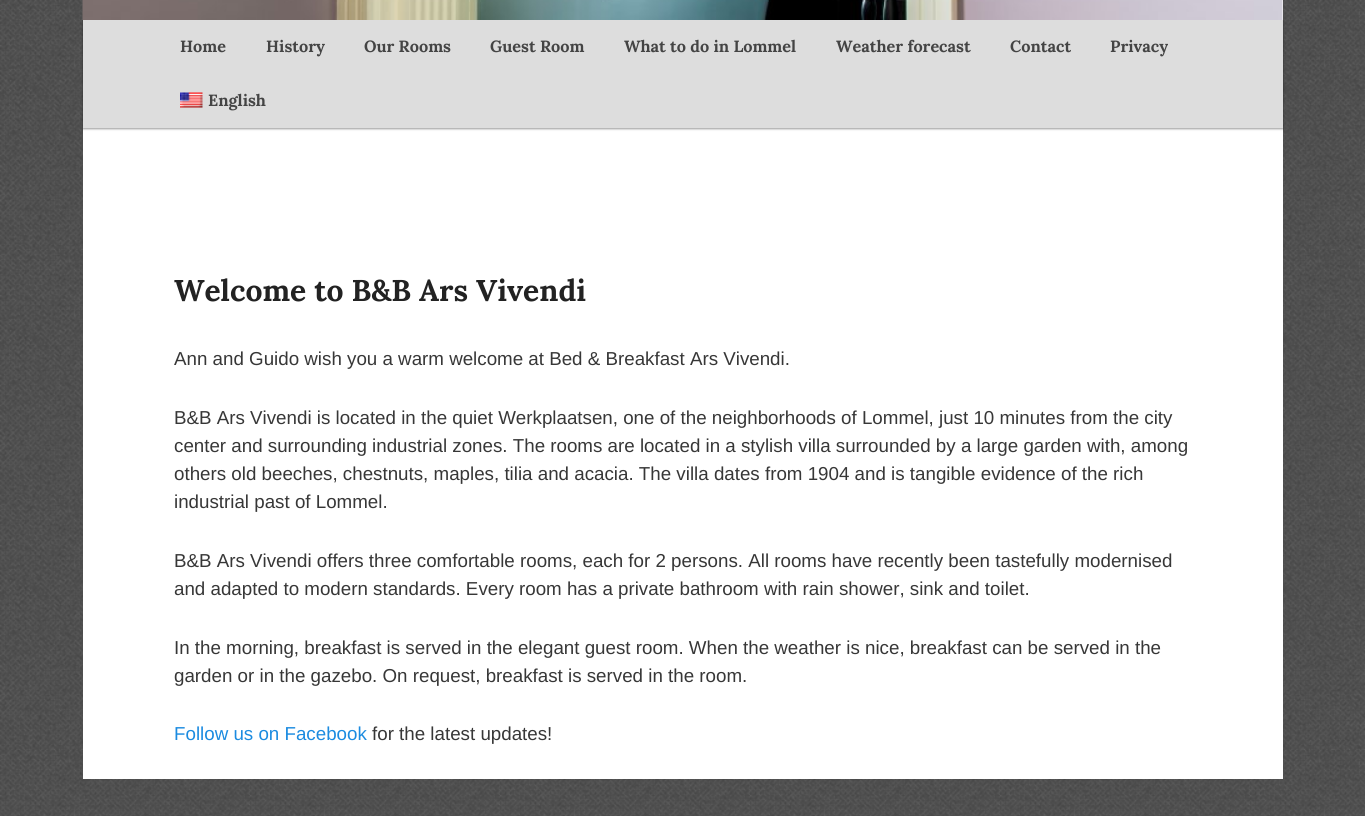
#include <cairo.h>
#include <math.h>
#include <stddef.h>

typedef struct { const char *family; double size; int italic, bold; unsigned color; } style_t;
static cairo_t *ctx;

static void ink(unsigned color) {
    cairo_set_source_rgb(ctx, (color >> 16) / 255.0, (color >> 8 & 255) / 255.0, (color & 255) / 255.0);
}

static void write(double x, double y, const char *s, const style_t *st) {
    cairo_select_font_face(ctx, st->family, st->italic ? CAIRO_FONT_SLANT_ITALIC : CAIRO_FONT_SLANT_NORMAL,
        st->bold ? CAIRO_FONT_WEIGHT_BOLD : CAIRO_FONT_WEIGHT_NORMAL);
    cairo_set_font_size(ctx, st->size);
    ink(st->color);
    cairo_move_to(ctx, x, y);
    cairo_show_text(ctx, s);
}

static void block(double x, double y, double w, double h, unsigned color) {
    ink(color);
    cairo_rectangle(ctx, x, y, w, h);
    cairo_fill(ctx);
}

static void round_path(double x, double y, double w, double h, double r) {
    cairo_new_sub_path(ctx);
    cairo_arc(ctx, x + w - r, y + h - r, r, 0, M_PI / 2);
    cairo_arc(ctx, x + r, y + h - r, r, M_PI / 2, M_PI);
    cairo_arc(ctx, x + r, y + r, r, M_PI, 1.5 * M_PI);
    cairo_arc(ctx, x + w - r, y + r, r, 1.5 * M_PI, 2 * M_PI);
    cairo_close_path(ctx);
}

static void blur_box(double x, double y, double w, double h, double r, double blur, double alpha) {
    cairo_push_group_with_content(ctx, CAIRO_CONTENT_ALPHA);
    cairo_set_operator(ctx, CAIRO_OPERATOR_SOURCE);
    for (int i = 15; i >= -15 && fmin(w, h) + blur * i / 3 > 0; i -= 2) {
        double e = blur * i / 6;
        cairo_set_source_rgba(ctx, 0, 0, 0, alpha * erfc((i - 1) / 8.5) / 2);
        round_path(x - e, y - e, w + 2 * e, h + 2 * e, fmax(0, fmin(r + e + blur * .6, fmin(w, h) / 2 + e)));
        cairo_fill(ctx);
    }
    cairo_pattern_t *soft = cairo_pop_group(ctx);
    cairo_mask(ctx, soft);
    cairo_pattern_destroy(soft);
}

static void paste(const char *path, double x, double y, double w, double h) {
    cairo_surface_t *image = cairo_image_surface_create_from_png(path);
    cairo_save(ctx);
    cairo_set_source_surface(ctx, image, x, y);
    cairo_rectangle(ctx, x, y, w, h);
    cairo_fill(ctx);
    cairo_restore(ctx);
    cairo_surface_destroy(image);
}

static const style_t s1 = {"Lora", 16.25, 0, 1, 0x444444};
static const style_t s2 = {"Lora", 30, 0, 1, 0x222222};
static const style_t s3 = {"Liberation Sans", 18.75, 0, 0, 0x373737};
static const style_t s4 = {"Liberation Sans", 18.75, 0, 0, 0x1b8be0};

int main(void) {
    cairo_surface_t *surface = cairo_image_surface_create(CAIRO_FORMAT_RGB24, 1365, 816);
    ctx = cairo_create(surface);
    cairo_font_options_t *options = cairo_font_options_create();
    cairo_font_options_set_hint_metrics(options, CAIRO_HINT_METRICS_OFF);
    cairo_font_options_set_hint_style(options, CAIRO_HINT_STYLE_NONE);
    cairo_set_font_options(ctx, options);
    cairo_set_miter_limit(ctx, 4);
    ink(0xffffff);
    cairo_paint(ctx);
    paste("pic1.png", 0, 0, 1365, 816);
    block(83, 0, 1200, 779, 0xffffff);
    ink(0x000000);
    blur_box(83, 21, 1200, 108, 0, 1, 0.4);
    paste("pic2.png", 82, 0, 1201, 20);
    block(83, 20, 1200, 108, 0xdddddd);
    write(180, 52, "Home", &s1);
    write(266, 52, "History", &s1);
    write(364, 52, "Our Rooms", &s1);
    write(490, 52, "Guest Room", &s1);
    write(624, 52, "What to do in Lommel", &s1);
    write(836, 52, "Weather forecast", &s1);
    write(1010, 52, "Contact", &s1);
    write(1110, 52, "Privacy", &s1);
    paste("pic3.png", 180, 92, 23, 16);
    write(208, 106, "English", &s1);
    write(174, 301, "Welcome to B&B Ars Vivendi", &s2);
    write(174, 365, "Ann and Guido wish you a warm welcome at Bed & Breakfast Ars Vivendi.", &s3);
    write(174, 424, "B&B Ars Vivendi is located in the quiet Werkplaatsen, one of the neighborhoods of Lommel, just 10 minutes from the city", &s3);
    write(174, 452, "center and surrounding industrial zones. The rooms are located in a stylish villa surrounded by a large garden with, among", &s3);
    write(174, 480, "others old beeches, chestnuts, maples, tilia and acacia. The villa dates from 1904 and is tangible evidence of the rich", &s3);
    write(174, 508, "industrial past of Lommel.", &s3);
    write(174, 567, "B&B Ars Vivendi offers three comfortable rooms, each for 2 persons. All rooms have recently been tastefully modernised", &s3);
    write(174, 595, "and adapted to modern standards. Every room has a private bathroom with rain shower, sink and toilet.", &s3);
    write(174, 654, "In the morning, breakfast is served in the elegant guest room. When the weather is nice, breakfast can be served in the", &s3);
    write(174, 682, "garden or in the gazebo. On request, breakfast is served in the room.", &s3);
    write(174, 740, "Follow us on Facebook", &s4);
    write(372, 740, "for the latest updates!", &s3);
    cairo_surface_write_to_png(surface, "screenshot.png");
    cairo_font_options_destroy(options);
    cairo_destroy(ctx);
    cairo_surface_destroy(surface);
    return 0;
}
